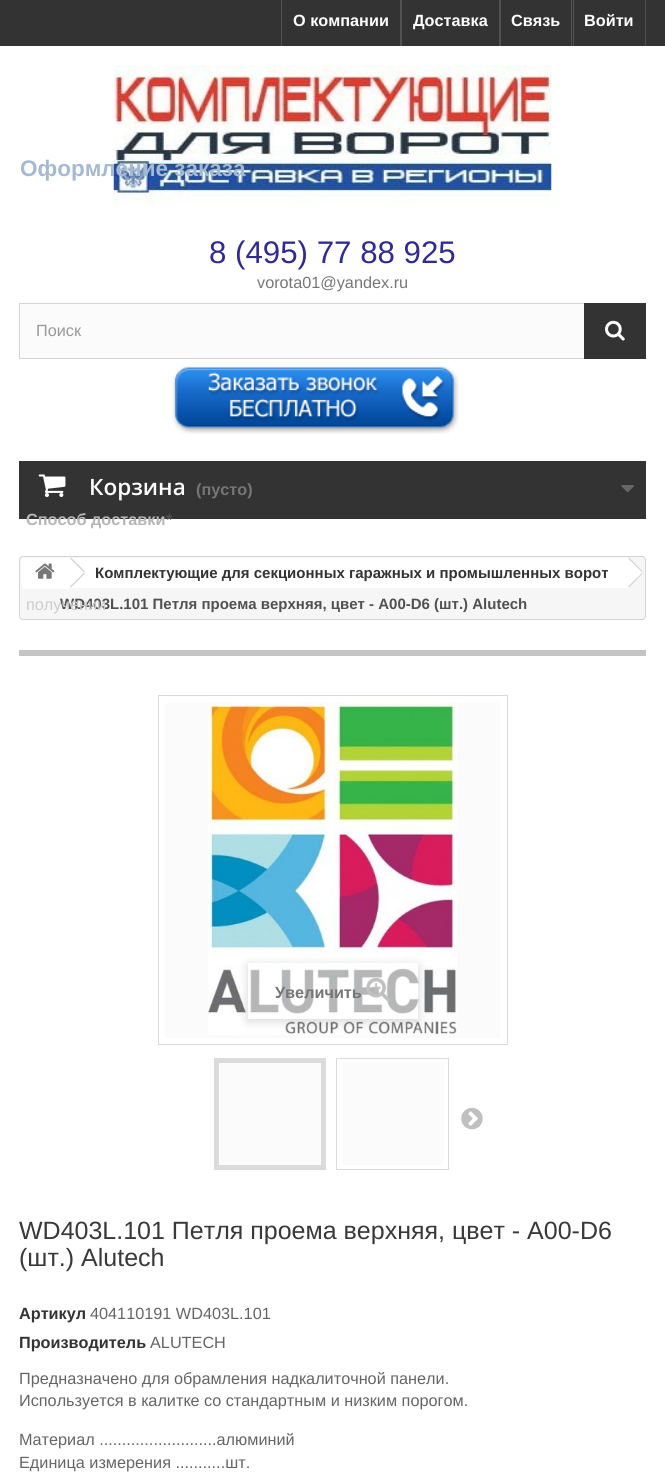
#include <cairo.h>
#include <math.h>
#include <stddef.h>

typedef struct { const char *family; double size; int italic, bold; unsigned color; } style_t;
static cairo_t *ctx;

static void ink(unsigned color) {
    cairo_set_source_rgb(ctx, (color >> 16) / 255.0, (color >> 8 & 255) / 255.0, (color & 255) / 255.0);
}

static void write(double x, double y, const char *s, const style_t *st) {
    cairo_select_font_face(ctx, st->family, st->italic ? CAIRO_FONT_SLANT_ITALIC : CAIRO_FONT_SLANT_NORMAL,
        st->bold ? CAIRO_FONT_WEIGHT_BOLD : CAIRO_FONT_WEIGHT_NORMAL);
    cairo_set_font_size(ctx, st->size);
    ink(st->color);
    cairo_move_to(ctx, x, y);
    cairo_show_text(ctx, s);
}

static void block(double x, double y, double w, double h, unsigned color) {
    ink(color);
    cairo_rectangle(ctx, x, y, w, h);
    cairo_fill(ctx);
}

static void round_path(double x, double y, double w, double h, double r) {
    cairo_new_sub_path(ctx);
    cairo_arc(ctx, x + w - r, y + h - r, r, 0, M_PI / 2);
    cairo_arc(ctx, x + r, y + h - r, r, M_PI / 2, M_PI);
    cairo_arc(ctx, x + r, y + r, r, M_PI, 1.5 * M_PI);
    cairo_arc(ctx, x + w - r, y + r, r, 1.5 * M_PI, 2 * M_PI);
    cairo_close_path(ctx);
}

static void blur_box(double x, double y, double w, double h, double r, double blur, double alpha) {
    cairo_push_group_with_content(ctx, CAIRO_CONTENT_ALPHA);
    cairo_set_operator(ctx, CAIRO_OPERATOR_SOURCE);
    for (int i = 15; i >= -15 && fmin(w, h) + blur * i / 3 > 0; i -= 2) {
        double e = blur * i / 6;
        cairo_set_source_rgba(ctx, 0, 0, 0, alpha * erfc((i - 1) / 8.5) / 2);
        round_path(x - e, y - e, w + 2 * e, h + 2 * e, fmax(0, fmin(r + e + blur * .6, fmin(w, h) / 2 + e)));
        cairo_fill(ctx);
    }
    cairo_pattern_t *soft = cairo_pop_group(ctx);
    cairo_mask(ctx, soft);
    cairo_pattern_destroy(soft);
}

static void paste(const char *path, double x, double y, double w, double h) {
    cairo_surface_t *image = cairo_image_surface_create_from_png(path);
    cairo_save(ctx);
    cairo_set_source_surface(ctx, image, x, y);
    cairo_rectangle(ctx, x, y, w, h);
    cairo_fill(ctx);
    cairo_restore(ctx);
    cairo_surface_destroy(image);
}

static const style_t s1 = {"Liberation Sans", 16.25, 0, 1, 0xffffff};
static const style_t s2 = {"Liberation Sans", 31.25, 0, 0, 0x302b91};
static const style_t s3 = {"Liberation Sans", 16.25, 0, 0, 0x777676};
static const style_t s4 = {"Liberation Sans", 16.25, 0, 0, 0x999999};
static const style_t s5 = {"Open Sans SemiBold", 22.5, 0, 0, 0xffffff};
static const style_t s6 = {"Liberation Sans", 16.25, 0, 1, 0x777676};
static const style_t s7 = {"Liberation Sans", 22.5, 0, 1, 0xa6b9d2};
static const style_t s8 = {"Liberation Sans", 16.25, 0, 1, 0xb6b6b6};
static const style_t s9 = {"Liberation Sans", 16.25, 0, 1, 0x515151};
static const style_t s10 = {"Liberation Sans", 15, 0, 1, 0x515151};
static const style_t s11 = {"Liberation Sans", 16.25, 0, 0, 0xcccccc};
static const style_t s12 = {"Liberation Sans", 15, 0, 1, 0x333333};
static const style_t s13 = {"Liberation Sans", 25, 0, 0, 0x3a3939};
static const style_t s14 = {"Liberation Sans", 16.25, 0, 1, 0x333333};
static const style_t s15 = {"Liberation Sans", 16.25, 0, 0, 0x656565};

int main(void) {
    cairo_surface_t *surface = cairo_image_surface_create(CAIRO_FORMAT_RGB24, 665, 1475);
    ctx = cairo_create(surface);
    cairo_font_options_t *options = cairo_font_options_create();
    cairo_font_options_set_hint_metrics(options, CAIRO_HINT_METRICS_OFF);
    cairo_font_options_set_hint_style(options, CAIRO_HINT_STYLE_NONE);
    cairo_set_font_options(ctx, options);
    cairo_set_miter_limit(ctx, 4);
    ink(0xffffff);
    cairo_paint(ctx);
    block(0, 0, 665, 46, 0x333333);
    block(281, 0, 1, 46, 0x515151);
    write(293, 26, "О компании", &s1);
    block(400, 0, 2, 46, 0x515151);
    write(413, 26, "Доставка", &s1);
    block(571, 0, 1, 46, 0x515151);
    block(499, 0, 2, 46, 0x515151);
    write(511, 26, "Связь", &s1);
    block(645, 0, 1, 46, 0x515151);
    block(573, 0, 1, 46, 0x515151);
    write(584, 26, "Войти", &s1);
    paste("pic1.png", 113, 65, 439, 141);
    write(209, 263, "8 (495) 77 88 925", &s2);
    write(257, 288, "vorota01@yandex.ru", &s3);
    block(20, 304, 564, 54, 0xfbfbfb);
    cairo_rectangle(ctx, 19.5, 303.5, 626, 55);
    ink(0xd6d4d4);
    cairo_set_line_width(ctx, 1);
    cairo_stroke(ctx);
    write(36, 336, "Поиск", &s4);
    block(584, 303, 62, 56, 0x333333);
    paste("pic2.png", 605, 320, 20, 21);
    paste("pic3.png", 172, 366, 287, 68);
    block(19, 461, 627, 58, 0x333333);
    paste("pic4.png", 38, 474, 28, 23);
    write(89, 495, "Корзина", &s5);
    write(196, 495, "(пусто)", &s6);
    paste("pic5.png", 621, 485, 13, 8);
    write(20, 176, "Оформление заказа", &s7);
    write(26, 525, "Способ доставки", &s8);
    write(166, 525, "*", &s9);
    ink(0xf6f6f6);
    round_path(19.5, 556.5, 626, 63, 3.5);
    cairo_fill_preserve(ctx);
    ink(0xd6d4d4);
    cairo_stroke(ctx);
    write(60, 609, "WD403L.101 Петля проема верхняя, цвет - A00-D6 (шт.) Alutech", &s10);
    write(26, 610, "получении", &s11);
    ink(0xffffff);
    cairo_new_path(ctx);
    cairo_move_to(ctx, 25, 558);
    cairo_line_to(ctx, 69, 558);
    cairo_line_to(ctx, 69, 589);
    cairo_line_to(ctx, 25, 589);
    cairo_curve_to(ctx, 23, 589, 21, 587, 21, 585);
    cairo_line_to(ctx, 21, 562);
    cairo_curve_to(ctx, 21, 560, 23, 558, 25, 558);
    cairo_close_path(ctx);
    cairo_fill(ctx);
    paste("pic6.png", 35, 563, 20, 16);
    block(69, 558, 559, 30, 0xffffff);
    ink(0xd6d4d4);
    cairo_new_path(ctx);
    cairo_move_to(ctx, 71, 557.5);
    cairo_line_to(ctx, 85, 571.5);
    cairo_line_to(ctx, 84, 572.5);
    cairo_line_to(ctx, 70, 558.5);
    cairo_close_path(ctx);
    cairo_fill(ctx);
    cairo_new_path(ctx);
    cairo_move_to(ctx, 84, 572.5);
    cairo_line_to(ctx, 85, 573.5);
    cairo_line_to(ctx, 71, 587.5);
    cairo_line_to(ctx, 70, 586.5);
    cairo_close_path(ctx);
    cairo_fill(ctx);
    write(95, 578, "Комплектующие для секционных гаражных и промышленных ворот", &s12);
    ink(0xffffff);
    cairo_new_path(ctx);
    cairo_move_to(ctx, 630, 558.5);
    cairo_curve_to(ctx, 629.5, 558, 629, 558, 628, 558);
    cairo_curve_to(ctx, 626.5, 558, 626, 559, 624.5, 560.5);
    cairo_line_to(ctx, 616, 568.5);
    cairo_curve_to(ctx, 612.5, 572, 612.5, 573, 616, 576.5);
    cairo_line_to(ctx, 620, 580.5);
    cairo_curve_to(ctx, 628.5, 588.5, 626.5, 590, 634, 582.5);
    cairo_line_to(ctx, 638.5, 578.5);
    cairo_curve_to(ctx, 640, 577, 645.5, 573.5, 642.5, 570.5);
    cairo_close_path(ctx);
    cairo_fill(ctx);
    ink(0xd6d4d4);
    cairo_new_path(ctx);
    cairo_move_to(ctx, 629, 557.5);
    cairo_line_to(ctx, 643, 571.5);
    cairo_line_to(ctx, 642.5, 572.5);
    cairo_line_to(ctx, 628, 558.5);
    cairo_close_path(ctx);
    cairo_fill(ctx);
    cairo_new_path(ctx);
    cairo_move_to(ctx, 642.5, 572.5);
    cairo_line_to(ctx, 643, 573.5);
    cairo_line_to(ctx, 629, 587.5);
    cairo_line_to(ctx, 628, 586.5);
    cairo_close_path(ctx);
    cairo_fill(ctx);
    block(19, 650, 627, 6, 0xc4c4c4);
    cairo_rectangle(ctx, 158.5, 695.5, 349, 349);
    ink(0xdbdbdb);
    cairo_stroke(ctx);
    block(165, 703, 335, 335, 0xfbfbfb);
    paste("pic7.png", 208, 702, 249, 333);
    cairo_save(ctx);
    cairo_set_fill_rule(ctx, CAIRO_FILL_RULE_EVEN_ODD);
    cairo_new_path(ctx);
    cairo_move_to(ctx, 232, 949);
    cairo_line_to(ctx, 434, 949);
    cairo_line_to(ctx, 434, 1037);
    cairo_line_to(ctx, 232, 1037);
    cairo_close_path(ctx);
    cairo_move_to(ctx, 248, 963);
    cairo_line_to(ctx, 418, 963);
    cairo_line_to(ctx, 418, 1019);
    cairo_line_to(ctx, 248, 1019);
    cairo_close_path(ctx);
    cairo_clip(ctx);
    ink(0x000000);
    blur_box(248, 965, 170, 56, 0, 5, 0.16);
    cairo_restore(ctx);
    cairo_set_source_rgba(ctx, 1, 1, 1, 0.5);
    cairo_rectangle(ctx, 249, 965, 169, 54);
    cairo_fill(ctx);
    write(275, 998, "Увеличить", &s6);
    paste("pic8.png", 366, 978, 24, 23);
    cairo_rectangle(ctx, 214.5, 1058.5, 111, 111);
    ink(0xdbdbdb);
    cairo_stroke(ctx);
    ink(0xfbfbfb);
    cairo_rectangle(ctx, 217, 1061, 106, 106);
    cairo_fill_preserve(ctx);
    ink(0xdbdbdb);
    cairo_set_line_width(ctx, 4);
    cairo_stroke(ctx);
    cairo_rectangle(ctx, 336.5, 1058.5, 112, 111);
    cairo_set_line_width(ctx, 1);
    cairo_stroke(ctx);
    block(342, 1063, 102, 102, 0xfbfbfb);
    paste("pic9.png", 461, 1107, 22, 23);
    write(19, 1239, "WD403L.101 Петля проема верхняя, цвет - A00-D6", &s13);
    write(19, 1266, "(шт.) Alutech", &s13);
    write(19, 1319, "Артикул", &s14);
    write(90, 1319, "404110191 WD403L.101", &s15);
    write(19, 1348, "Производитель", &s14);
    write(150, 1348, "ALUTECH", &s15);
    write(19, 1384, "Предназначено для обрамления надкалиточной панели.", &s15);
    write(19, 1406, "Используется в калитке со стандартным и низким порогом.", &s15);
    write(19, 1445, "Материал ..........................алюминий", &s15);
    write(19, 1468, "Единица измерения ...........шт.", &s15);
    cairo_surface_write_to_png(surface, "screenshot.png");
    cairo_font_options_destroy(options);
    cairo_destroy(ctx);
    cairo_surface_destroy(surface);
    return 0;
}
